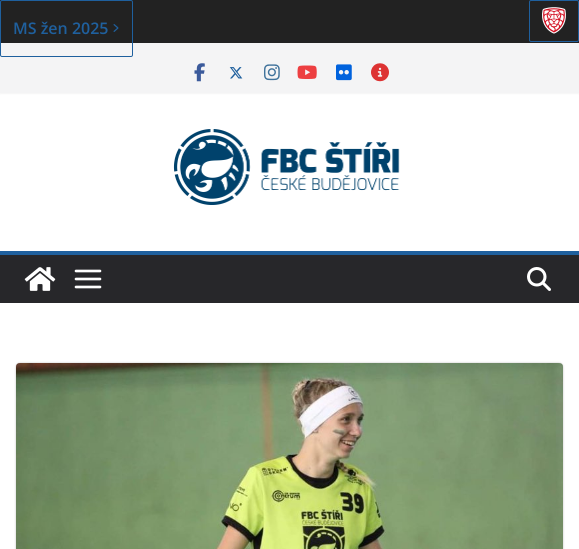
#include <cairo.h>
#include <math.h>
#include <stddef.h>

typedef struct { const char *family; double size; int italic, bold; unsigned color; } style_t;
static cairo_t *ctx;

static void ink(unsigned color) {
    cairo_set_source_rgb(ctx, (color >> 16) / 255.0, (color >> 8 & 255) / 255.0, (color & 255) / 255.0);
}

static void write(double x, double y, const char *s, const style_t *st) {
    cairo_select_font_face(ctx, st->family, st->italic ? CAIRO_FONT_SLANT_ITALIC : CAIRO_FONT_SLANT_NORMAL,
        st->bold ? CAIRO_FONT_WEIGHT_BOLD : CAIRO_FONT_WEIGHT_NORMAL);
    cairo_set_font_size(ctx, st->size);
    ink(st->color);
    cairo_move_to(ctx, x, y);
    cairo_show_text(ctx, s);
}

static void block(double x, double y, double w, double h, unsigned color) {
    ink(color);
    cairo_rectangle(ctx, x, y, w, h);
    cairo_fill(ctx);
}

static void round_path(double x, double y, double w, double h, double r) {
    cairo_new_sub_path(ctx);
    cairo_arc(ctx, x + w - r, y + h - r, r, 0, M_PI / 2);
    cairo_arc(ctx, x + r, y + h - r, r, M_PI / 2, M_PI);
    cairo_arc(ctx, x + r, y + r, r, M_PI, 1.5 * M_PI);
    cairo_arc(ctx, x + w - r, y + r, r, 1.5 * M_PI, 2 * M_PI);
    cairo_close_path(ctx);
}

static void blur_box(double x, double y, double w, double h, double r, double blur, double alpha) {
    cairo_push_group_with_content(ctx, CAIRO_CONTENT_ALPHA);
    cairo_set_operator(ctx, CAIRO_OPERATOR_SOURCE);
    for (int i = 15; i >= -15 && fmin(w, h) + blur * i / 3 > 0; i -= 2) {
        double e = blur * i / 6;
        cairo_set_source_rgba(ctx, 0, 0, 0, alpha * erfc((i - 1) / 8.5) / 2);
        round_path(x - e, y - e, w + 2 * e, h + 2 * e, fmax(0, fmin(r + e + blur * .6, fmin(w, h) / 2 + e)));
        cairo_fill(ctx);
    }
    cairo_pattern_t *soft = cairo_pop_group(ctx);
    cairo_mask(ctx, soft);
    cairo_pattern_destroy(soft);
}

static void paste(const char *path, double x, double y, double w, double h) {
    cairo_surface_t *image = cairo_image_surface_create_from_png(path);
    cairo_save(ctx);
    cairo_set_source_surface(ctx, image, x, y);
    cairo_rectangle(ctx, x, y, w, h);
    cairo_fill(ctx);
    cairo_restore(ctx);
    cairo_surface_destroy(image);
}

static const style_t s1 = {"Open Sans SemiBold", 16, 0, 0, 0x1f609e};

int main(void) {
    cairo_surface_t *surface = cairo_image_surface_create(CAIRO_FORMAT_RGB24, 579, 549);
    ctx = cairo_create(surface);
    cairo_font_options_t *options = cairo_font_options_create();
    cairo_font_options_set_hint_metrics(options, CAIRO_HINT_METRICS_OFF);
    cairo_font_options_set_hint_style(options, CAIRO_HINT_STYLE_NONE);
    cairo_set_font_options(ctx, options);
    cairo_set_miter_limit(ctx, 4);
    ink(0xffffff);
    cairo_paint(ctx);
    ink(0x000000);
    blur_box(0, 43, 579, 50, 0, 1, 0.1);
    block(0, 0, 579, 43, 0x222222);
    block(0, 43, 579, 50, 0xf4f4f5);
    round_path(0.5, 0.5, 132, 56, 1.5);
    ink(0x1f609e);
    cairo_set_line_width(ctx, 1);
    cairo_stroke(ctx);
    write(13, 34, "MS žen 2025", &s1);
    paste("pic1.png", 113, 24, 6, 8);
    round_path(529.5, 0.5, 49, 41, 1.5);
    cairo_stroke(ctx);
    paste("pic2.png", 542, 7, 24, 27);
    paste("pic3.png", 194, 63, 11, 19);
    paste("pic4.png", 229, 67, 14, 12);
    paste("pic5.png", 264, 64, 16, 17);
    paste("pic6.png", 297, 65, 20, 14);
    paste("pic7.png", 336, 64, 16, 17);
    paste("pic8.png", 371, 63, 18, 19);
    paste("pic9.png", 173, 129, 227, 76);
    block(0, 255, 579, 48, 0x27272a);
    block(0, 251, 579, 4, 0x1f609e);
    paste("pic10.png", 24, 267, 32, 24);
    paste("pic11.png", 74, 269, 28, 20);
    paste("pic12.png", 527, 267, 24, 24);
    ink(0x000000);
    blur_box(16, 363, 547, 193, 4, 1, 0.24);
    paste("pic13.png", 16, 363, 547, 186);
    cairo_surface_write_to_png(surface, "screenshot.png");
    cairo_font_options_destroy(options);
    cairo_destroy(ctx);
    cairo_surface_destroy(surface);
    return 0;
}
